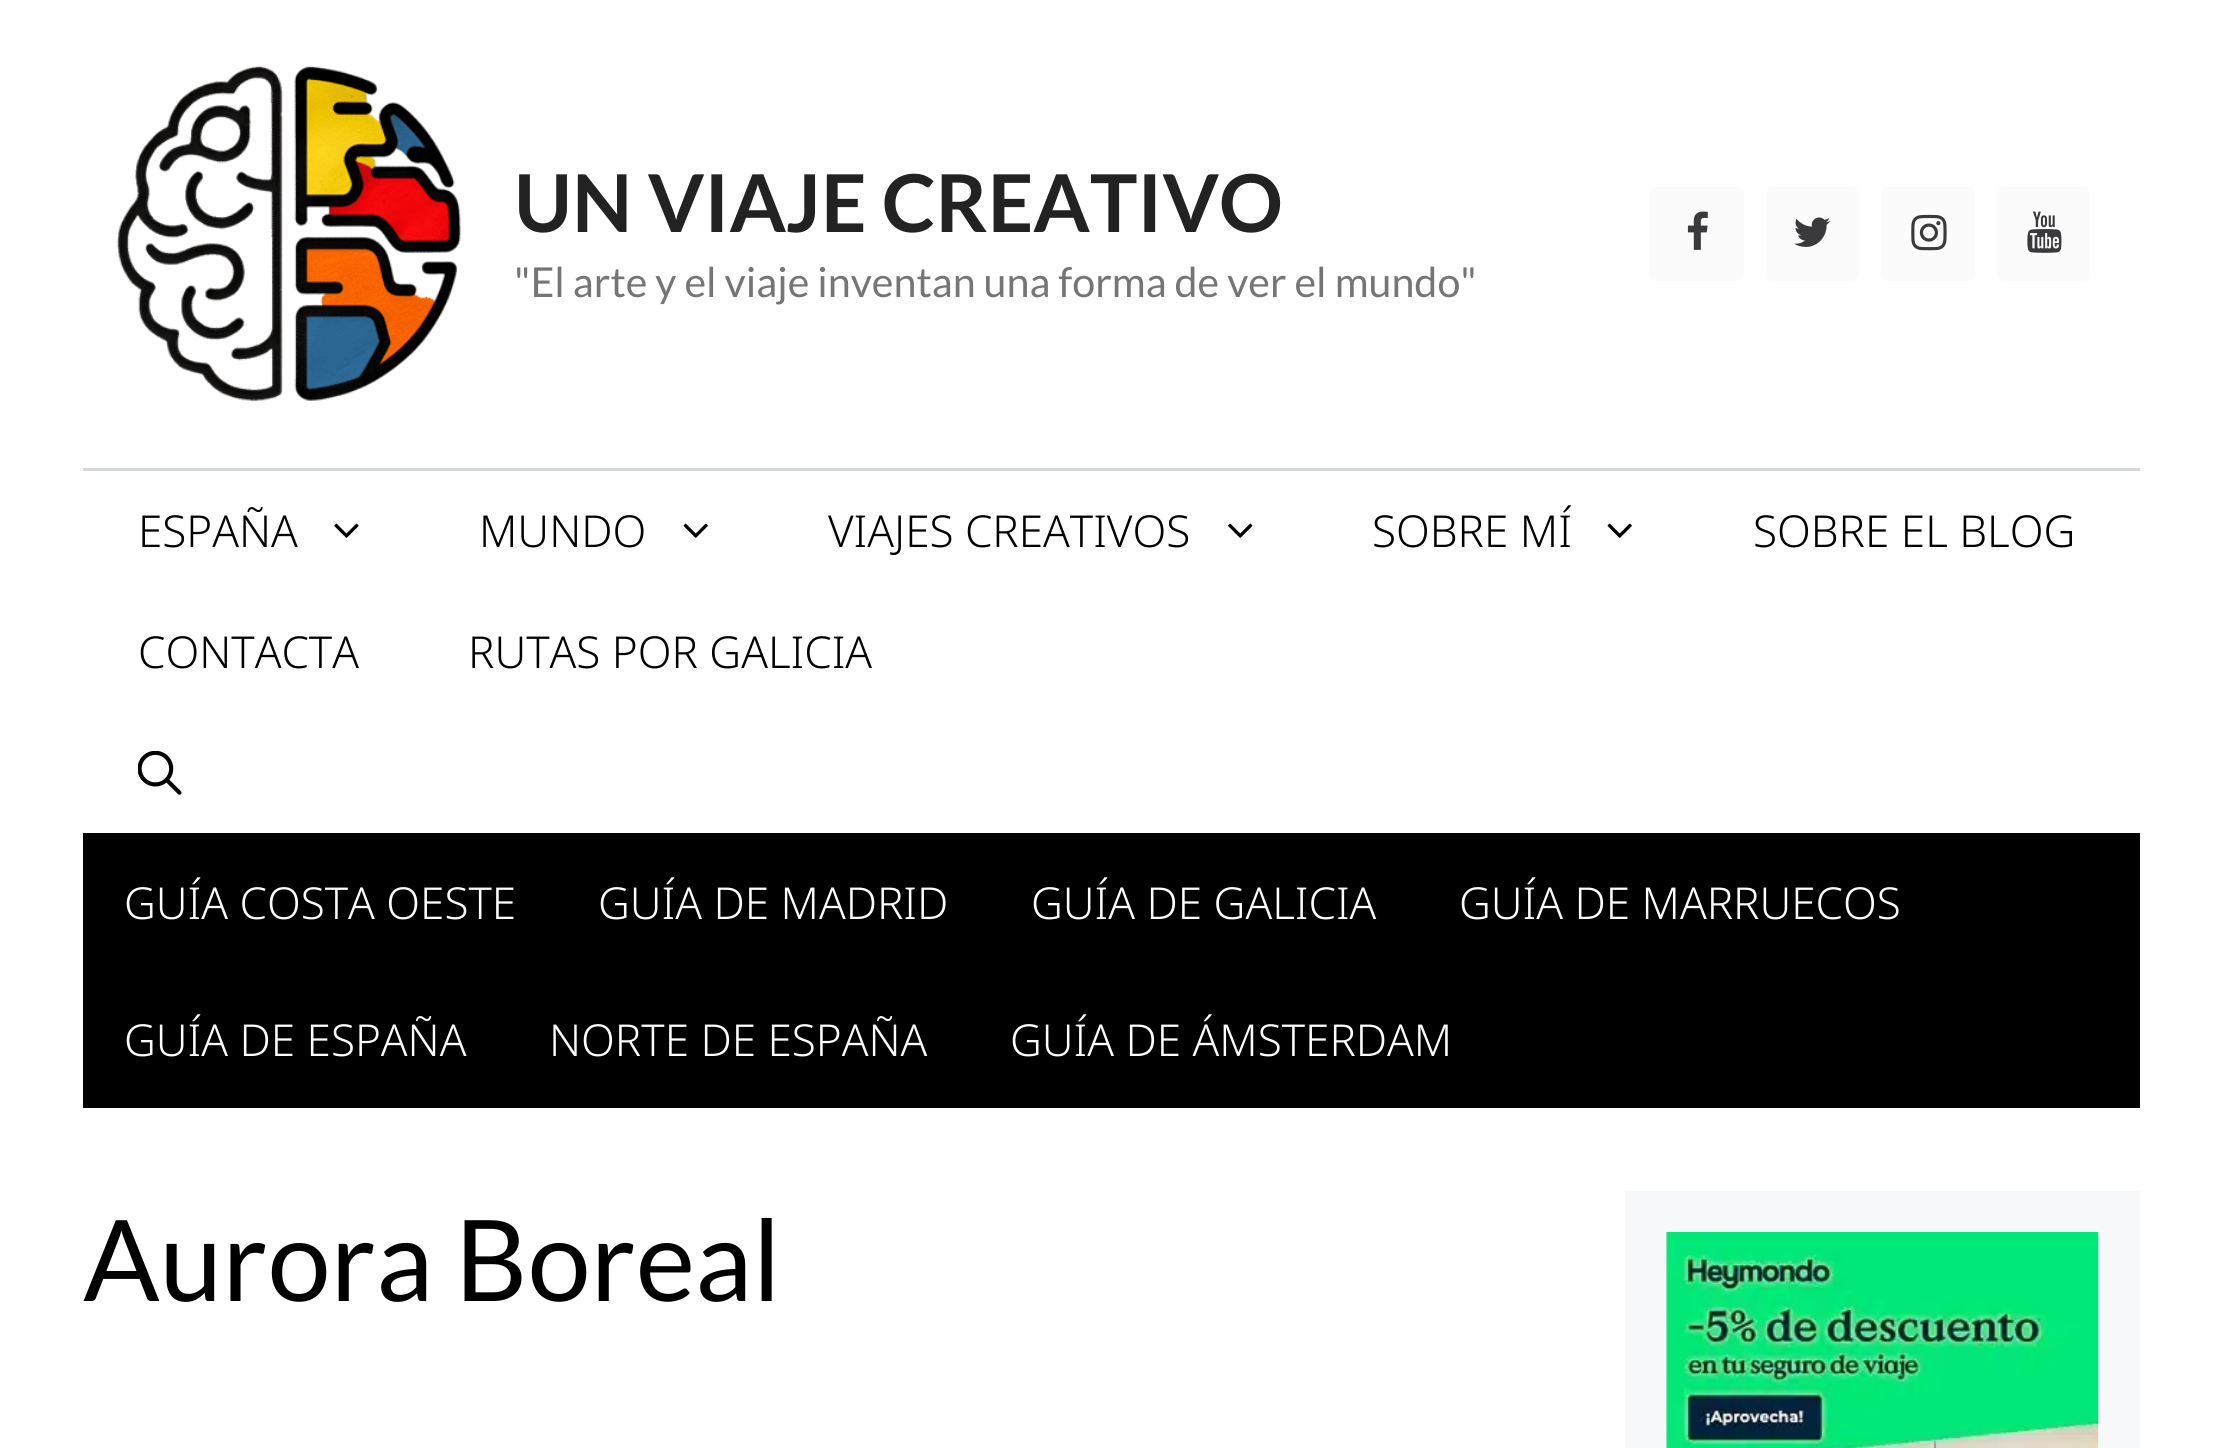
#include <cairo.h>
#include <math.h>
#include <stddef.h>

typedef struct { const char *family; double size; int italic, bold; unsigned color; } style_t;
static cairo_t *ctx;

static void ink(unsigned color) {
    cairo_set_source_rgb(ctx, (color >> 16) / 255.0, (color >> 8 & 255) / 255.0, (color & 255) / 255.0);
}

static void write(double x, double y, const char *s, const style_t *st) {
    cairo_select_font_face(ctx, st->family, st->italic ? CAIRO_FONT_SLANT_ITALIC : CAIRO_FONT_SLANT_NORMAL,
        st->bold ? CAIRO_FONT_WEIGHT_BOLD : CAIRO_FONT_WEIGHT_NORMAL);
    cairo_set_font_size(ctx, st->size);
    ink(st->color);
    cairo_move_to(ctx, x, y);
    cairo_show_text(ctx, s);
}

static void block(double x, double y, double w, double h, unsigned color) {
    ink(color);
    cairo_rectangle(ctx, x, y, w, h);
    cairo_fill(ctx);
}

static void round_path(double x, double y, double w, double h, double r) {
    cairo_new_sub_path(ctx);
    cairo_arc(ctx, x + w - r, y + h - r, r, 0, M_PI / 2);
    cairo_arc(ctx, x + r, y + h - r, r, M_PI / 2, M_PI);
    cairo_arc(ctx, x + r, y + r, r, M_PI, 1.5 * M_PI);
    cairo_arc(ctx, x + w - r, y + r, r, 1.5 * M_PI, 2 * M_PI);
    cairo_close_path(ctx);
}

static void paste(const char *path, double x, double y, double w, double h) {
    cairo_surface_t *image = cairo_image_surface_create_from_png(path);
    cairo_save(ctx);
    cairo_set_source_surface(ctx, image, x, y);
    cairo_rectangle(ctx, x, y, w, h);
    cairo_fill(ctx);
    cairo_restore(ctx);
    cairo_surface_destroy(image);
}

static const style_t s1 = {"Lato", 79.75, 0, 1, 0x222222};
static const style_t s2 = {"Lato", 41.25, 0, 0, 0x757575};
static const style_t s3 = {"Noto Sans Light", 44, 0, 0, 0x000000};
static const style_t s4 = {"Noto Sans Light", 44, 0, 0, 0xffffff};
static const style_t s5 = {"Lato", 112.75, 0, 0, 0x000000};

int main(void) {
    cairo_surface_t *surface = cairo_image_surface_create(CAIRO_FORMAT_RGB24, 2222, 1448);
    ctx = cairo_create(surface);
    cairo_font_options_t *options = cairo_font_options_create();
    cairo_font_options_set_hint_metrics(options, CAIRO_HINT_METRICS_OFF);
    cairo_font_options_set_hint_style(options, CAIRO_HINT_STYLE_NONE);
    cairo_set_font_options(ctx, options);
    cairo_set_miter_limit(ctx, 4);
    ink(0xffffff);
    cairo_paint(ctx);
    paste("pic1.png", 116, 66, 345, 337);
    write(514, 232, "UN VIAJE CREATIVO", &s1);
    write(514, 297, "\"El arte y el viaje inventan una forma de ver el mundo\"", &s2);
    ink(0xfbfbfb);
    round_path(1650, 187, 94, 94, 6);
    cairo_fill(ctx);
    paste("pic2.png", 1687, 211, 21, 39);
    round_path(1766, 187, 93, 94, 6);
    cairo_fill(ctx);
    paste("pic3.png", 1794, 217, 37, 30);
    round_path(1881, 187, 94, 94, 6);
    cairo_fill(ctx);
    paste("pic4.png", 1911, 214, 36, 37);
    round_path(1997, 187, 93, 94, 6);
    cairo_fill(ctx);
    paste("pic5.png", 2027, 211, 35, 42);
    block(83, 468, 2057, 3, 0xd4d7d8);
    write(138, 547, "ESPAÑA", &s3);
    paste("pic6.png", 334, 523, 25, 15);
    write(479, 547, "MUNDO", &s3);
    paste("pic7.png", 683, 523, 25, 15);
    write(828, 547, "VIAJES CREATIVOS", &s3);
    paste("pic8.png", 1228, 523, 25, 15);
    write(1372, 547, "SOBRE MÍ", &s3);
    paste("pic7.png", 1607, 523, 25, 15);
    write(1753, 547, "SOBRE EL BLOG", &s3);
    write(138, 668, "CONTACTA", &s3);
    write(468, 668, "RUTAS POR GALICIA", &s3);
    paste("pic9.png", 138, 751, 44, 44);
    block(83, 833, 2057, 275, 0x000000);
    write(124, 919, "GUÍA COSTA OESTE", &s4);
    write(598, 919, "GUÍA DE MADRID", &s4);
    write(1031, 919, "GUÍA DE GALICIA", &s4);
    write(1459, 919, "GUÍA DE MARRUECOS", &s4);
    write(124, 1056, "GUÍA DE ESPAÑA", &s4);
    write(549, 1056, "NORTE DE ESPAÑA", &s4);
    write(1010, 1056, "GUÍA DE ÁMSTERDAM", &s4);
    write(83, 1301, "Aurora Boreal", &s5);
    block(1625, 1191, 515, 257, 0xf7f8f9);
    paste("pic10.png", 1666, 1232, 433, 216);
    cairo_surface_write_to_png(surface, "screenshot.png");
    cairo_font_options_destroy(options);
    cairo_destroy(ctx);
    cairo_surface_destroy(surface);
    return 0;
}
